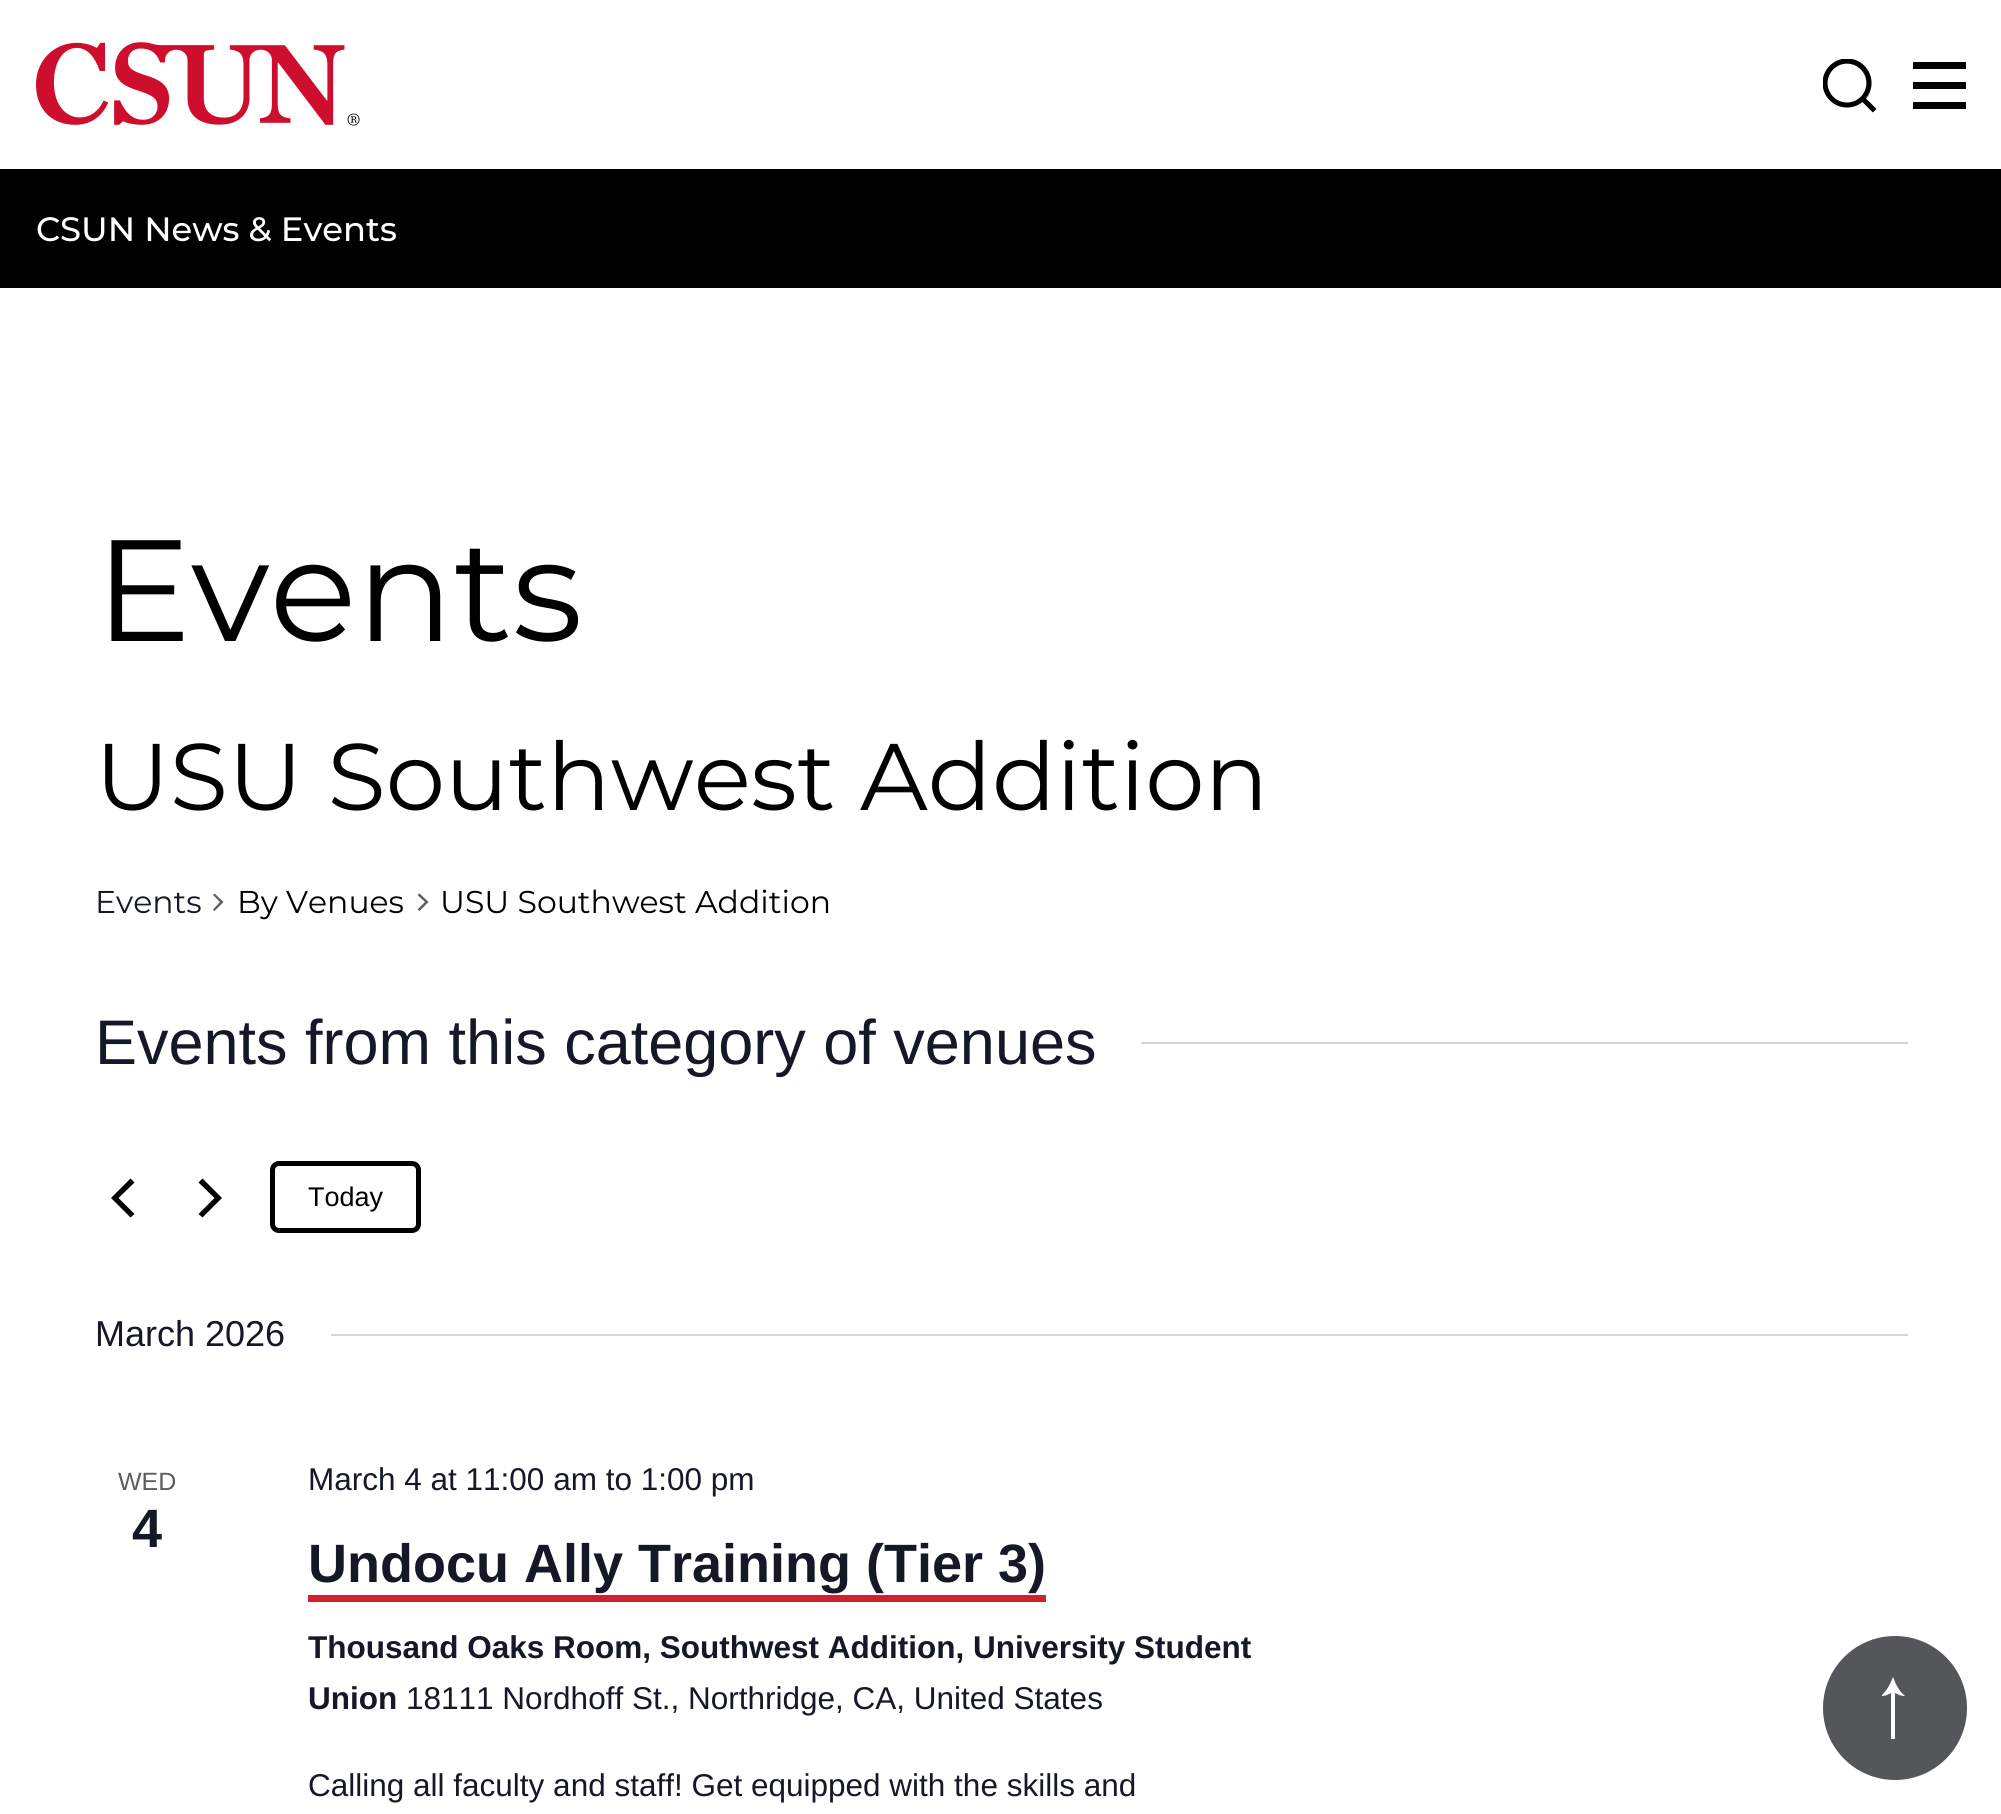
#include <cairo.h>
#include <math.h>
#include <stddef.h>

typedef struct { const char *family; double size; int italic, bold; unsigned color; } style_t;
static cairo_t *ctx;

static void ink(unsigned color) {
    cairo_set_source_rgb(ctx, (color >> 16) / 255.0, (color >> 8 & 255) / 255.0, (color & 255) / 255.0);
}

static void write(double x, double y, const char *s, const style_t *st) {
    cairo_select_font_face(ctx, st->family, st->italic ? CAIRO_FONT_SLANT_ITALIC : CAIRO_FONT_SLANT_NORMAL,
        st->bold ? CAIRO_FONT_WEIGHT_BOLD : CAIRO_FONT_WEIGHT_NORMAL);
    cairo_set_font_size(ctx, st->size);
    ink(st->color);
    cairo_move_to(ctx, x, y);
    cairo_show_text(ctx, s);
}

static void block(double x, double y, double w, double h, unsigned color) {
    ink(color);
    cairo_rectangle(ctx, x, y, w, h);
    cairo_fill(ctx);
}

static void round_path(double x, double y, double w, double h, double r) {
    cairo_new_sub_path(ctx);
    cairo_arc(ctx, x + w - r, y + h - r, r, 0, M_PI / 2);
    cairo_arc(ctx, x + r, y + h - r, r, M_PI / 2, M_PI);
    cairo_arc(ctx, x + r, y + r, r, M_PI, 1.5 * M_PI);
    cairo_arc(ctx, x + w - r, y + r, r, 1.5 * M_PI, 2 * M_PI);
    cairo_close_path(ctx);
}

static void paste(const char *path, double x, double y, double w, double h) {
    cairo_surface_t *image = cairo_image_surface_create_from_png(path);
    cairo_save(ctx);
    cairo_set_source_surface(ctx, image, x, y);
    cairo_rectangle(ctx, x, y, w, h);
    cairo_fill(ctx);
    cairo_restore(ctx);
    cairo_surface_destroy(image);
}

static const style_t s1 = {"Montserrat Medium", 33.75, 0, 0, 0xffffff};
static const style_t s2 = {"Montserrat", 144, 0, 0, 0x000000};
static const style_t s3 = {"Montserrat", 94.5, 0, 0, 0x000000};
static const style_t s4 = {"Montserrat", 31.5, 0, 0, 0x141827};
static const style_t s5 = {"Montserrat", 31.5, 0, 0, 0x000000};
static const style_t s6 = {"Liberation Sans", 63, 0, 0, 0x141827};
static const style_t s7 = {"Liberation Sans", 27, 0, 0, 0x000000};
static const style_t s8 = {"Liberation Sans", 36, 0, 0, 0x141827};
static const style_t s9 = {"Liberation Sans", 25, 0, 0, 0x5d5d5d};
static const style_t s10 = {"Liberation Sans", 54, 0, 1, 0x141827};
static const style_t s11 = {"Liberation Sans", 31.5, 0, 0, 0x141827};
static const style_t s12 = {"Liberation Sans", 31.5, 0, 1, 0x141827};

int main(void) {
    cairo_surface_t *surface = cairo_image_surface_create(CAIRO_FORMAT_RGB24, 2001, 1814);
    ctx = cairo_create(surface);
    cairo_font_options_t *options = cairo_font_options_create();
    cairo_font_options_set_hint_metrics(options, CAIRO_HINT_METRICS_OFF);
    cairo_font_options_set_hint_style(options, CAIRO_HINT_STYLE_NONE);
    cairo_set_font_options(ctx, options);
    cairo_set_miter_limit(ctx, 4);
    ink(0xffffff);
    cairo_paint(ctx);
    paste("pic1.png", 36, 42, 324, 84);
    paste("pic2.png", 1823, 59, 54, 54);
    cairo_save(ctx);
    cairo_rectangle(ctx, 1913, 59, 54, 54);
    cairo_clip(ctx);
    ink(0x000000);
    cairo_new_path(ctx);
    cairo_move_to(ctx, 1966, 62);
    cairo_line_to(ctx, 1966, 69);
    cairo_line_to(ctx, 1912, 69);
    cairo_line_to(ctx, 1912, 62);
    cairo_close_path(ctx);
    cairo_move_to(ctx, 1912, 89);
    cairo_line_to(ctx, 1966, 89);
    cairo_line_to(ctx, 1966, 82);
    cairo_line_to(ctx, 1912, 82);
    cairo_close_path(ctx);
    cairo_move_to(ctx, 1912, 109);
    cairo_line_to(ctx, 1966, 109);
    cairo_line_to(ctx, 1966, 102);
    cairo_line_to(ctx, 1912, 102);
    cairo_close_path(ctx);
    cairo_fill(ctx);
    cairo_restore(ctx);
    block(0, 169, 2001, 119, 0x000000);
    write(36, 241, "CSUN News & Events", &s1);
    write(95, 641, "Events", &s2);
    write(95, 810, "USU Southwest Addition", &s3);
    write(95, 913, "Events", &s4);
    ink(0x5d5d5d);
    cairo_new_path(ctx);
    cairo_move_to(ctx, 213, 895);
    cairo_line_to(ctx, 214.5, 893.5);
    cairo_line_to(ctx, 223.5, 902);
    cairo_line_to(ctx, 214.5, 911);
    cairo_line_to(ctx, 213, 909.5);
    cairo_line_to(ctx, 220, 902);
    cairo_close_path(ctx);
    cairo_fill(ctx);
    write(237, 913, "By Venues", &s5);
    ink(0x5d5d5d);
    cairo_new_path(ctx);
    cairo_move_to(ctx, 417.5, 895);
    cairo_line_to(ctx, 419.5, 893.5);
    cairo_line_to(ctx, 428.5, 902);
    cairo_line_to(ctx, 419.5, 911);
    cairo_line_to(ctx, 417.5, 909.5);
    cairo_line_to(ctx, 425, 902);
    cairo_close_path(ctx);
    cairo_fill(ctx);
    write(440, 913, "USU Southwest Addition", &s5);
    write(95, 1064, "Events from this category of venues", &s6);
    block(1141, 1042, 767, 2, 0xd5d5d5);
    ink(0x000000);
    cairo_new_path(ctx);
    cairo_move_to(ctx, 134.5, 1214);
    cairo_line_to(ctx, 130.5, 1217.5);
    cairo_line_to(ctx, 111, 1198);
    cairo_line_to(ctx, 130.5, 1178.5);
    cairo_line_to(ctx, 134.5, 1182.5);
    cairo_line_to(ctx, 118.5, 1198);
    cairo_close_path(ctx);
    cairo_fill(ctx);
    cairo_new_path(ctx);
    cairo_move_to(ctx, 198.5, 1182.5);
    cairo_line_to(ctx, 202.5, 1178.5);
    cairo_line_to(ctx, 222, 1198);
    cairo_line_to(ctx, 202.5, 1217.5);
    cairo_line_to(ctx, 198.5, 1214);
    cairo_line_to(ctx, 214.5, 1198);
    cairo_close_path(ctx);
    cairo_fill(ctx);
    round_path(272.5, 1163.5, 146, 67, 6.5);
    cairo_set_line_width(ctx, 5);
    cairo_stroke(ctx);
    write(308, 1206, "Today", &s7);
    write(95, 1346, "March 2026", &s8);
    block(331, 1334, 1577, 2, 0xd5d5d5);
    write(118, 1490, "WED", &s9);
    write(132, 1547, "4", &s10);
    write(308, 1490, "March 4 at 11:00 am to 1:00 pm", &s11);
    write(308, 1582, "Undocu Ally Training (Tier 3)", &s10);
    ink(0xd22030);
    cairo_new_path(ctx);
    cairo_move_to(ctx, 308, 1539);
    cairo_line_to(ctx, 308, 1602);
    cairo_line_to(ctx, 1046, 1602);
    cairo_line_to(ctx, 1046, 1595);
    cairo_line_to(ctx, 308, 1595);
    cairo_close_path(ctx);
    cairo_fill(ctx);
    write(308, 1658, "Thousand Oaks Room, Southwest Addition, University Student", &s12);
    write(308, 1709, "Union", &s12);
    write(406, 1709, "18111 Nordhoff St., Northridge, CA, United States", &s11);
    write(308, 1796, "Calling all faculty and staff! Get equipped with the skills and", &s11);
    ink(0x55565a);
    cairo_new_path(ctx);
    cairo_arc(ctx, 1895, 1708, 72, 0, 2 * M_PI);
    cairo_fill(ctx);
    ink(0xffffff);
    cairo_new_path(ctx);
    cairo_move_to(ctx, 1891, 1739);
    cairo_line_to(ctx, 1891, 1693);
    cairo_curve_to(ctx, 1887, 1695, 1885, 1696, 1882, 1696);
    cairo_line_to(ctx, 1882, 1695);
    cairo_curve_to(ctx, 1887, 1690, 1890, 1685, 1893, 1677);
    cairo_curve_to(ctx, 1896, 1685, 1899, 1691, 1905, 1696);
    cairo_curve_to(ctx, 1901, 1696, 1899, 1695, 1895, 1693);
    cairo_line_to(ctx, 1895, 1739);
    cairo_close_path(ctx);
    cairo_fill(ctx);
    cairo_surface_write_to_png(surface, "screenshot.png");
    cairo_font_options_destroy(options);
    cairo_destroy(ctx);
    cairo_surface_destroy(surface);
    return 0;
}
